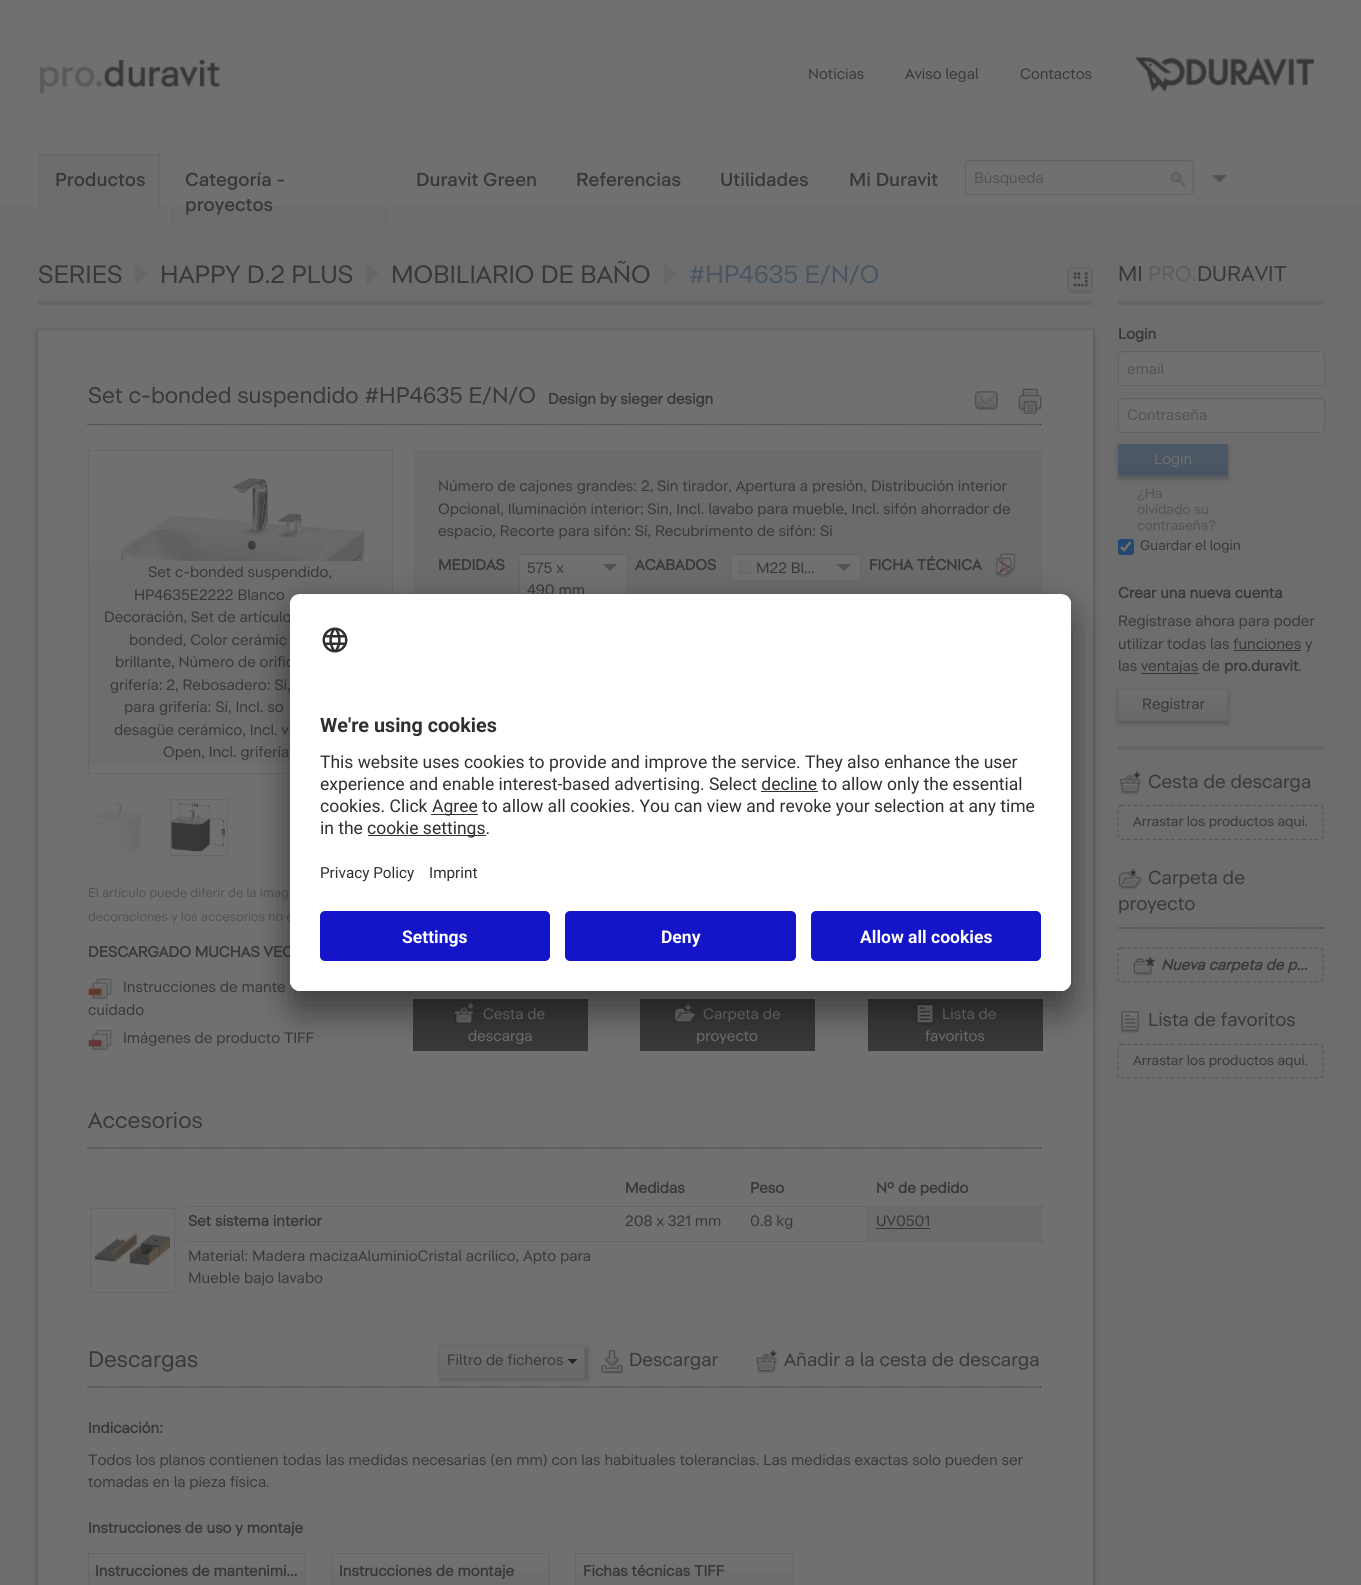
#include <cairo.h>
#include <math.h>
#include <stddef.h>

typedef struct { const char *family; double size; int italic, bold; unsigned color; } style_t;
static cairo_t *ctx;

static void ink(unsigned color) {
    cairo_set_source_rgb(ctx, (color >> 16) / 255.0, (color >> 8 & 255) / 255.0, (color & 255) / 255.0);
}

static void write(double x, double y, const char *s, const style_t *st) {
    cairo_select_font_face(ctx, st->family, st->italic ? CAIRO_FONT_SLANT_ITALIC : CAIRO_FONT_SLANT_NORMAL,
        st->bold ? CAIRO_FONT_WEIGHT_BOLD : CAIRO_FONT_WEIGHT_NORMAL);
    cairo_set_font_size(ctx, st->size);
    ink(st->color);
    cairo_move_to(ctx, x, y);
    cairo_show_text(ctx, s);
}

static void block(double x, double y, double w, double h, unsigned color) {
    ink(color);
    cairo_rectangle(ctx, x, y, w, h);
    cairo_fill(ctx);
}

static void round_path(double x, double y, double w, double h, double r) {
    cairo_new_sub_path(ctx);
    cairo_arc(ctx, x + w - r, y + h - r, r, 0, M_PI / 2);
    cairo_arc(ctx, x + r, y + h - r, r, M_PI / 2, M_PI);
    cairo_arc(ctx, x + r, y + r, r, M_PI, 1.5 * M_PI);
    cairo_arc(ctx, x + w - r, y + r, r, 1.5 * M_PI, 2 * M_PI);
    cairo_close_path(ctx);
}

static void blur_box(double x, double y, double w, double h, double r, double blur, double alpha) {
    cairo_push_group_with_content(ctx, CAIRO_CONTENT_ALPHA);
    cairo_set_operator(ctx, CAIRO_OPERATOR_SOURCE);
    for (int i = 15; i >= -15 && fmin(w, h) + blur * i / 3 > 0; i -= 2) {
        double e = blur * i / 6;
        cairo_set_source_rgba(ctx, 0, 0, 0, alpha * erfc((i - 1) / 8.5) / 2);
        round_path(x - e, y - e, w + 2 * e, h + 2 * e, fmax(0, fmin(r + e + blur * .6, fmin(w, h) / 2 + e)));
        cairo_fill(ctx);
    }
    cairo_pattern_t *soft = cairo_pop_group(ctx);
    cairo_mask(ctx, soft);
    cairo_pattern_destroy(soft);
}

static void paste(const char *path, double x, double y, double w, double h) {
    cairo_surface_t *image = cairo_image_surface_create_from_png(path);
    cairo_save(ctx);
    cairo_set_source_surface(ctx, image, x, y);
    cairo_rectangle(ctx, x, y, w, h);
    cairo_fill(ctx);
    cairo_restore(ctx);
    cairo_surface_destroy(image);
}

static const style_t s1 = {"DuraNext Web", 15, 0, 0, 0x383838};
static const style_t s2 = {"DuraNext Web Medium", 18.75, 0, 0, 0x383838};
static const style_t s3 = {"DuraNext Web", 15, 0, 0, 0x525252};
static const style_t s4 = {"DuraNext Web", 25, 0, 0, 0x383838};
static const style_t s5 = {"DuraNext Web", 25, 0, 0, 0x495562};
static const style_t s6 = {"DuraNext Web", 22.5, 0, 0, 0x383838};
static const style_t s7 = {"DuraNext Web", 15, 0, 1, 0x383838};
static const style_t s8 = {"DuraNext Web", 12.75, 0, 0, 0x525252};
static const style_t s9 = {"DuraNext Web", 15, 0, 0, 0x707070};
static const style_t s10 = {"DuraNext Web", 18.75, 0, 0, 0x383838};
static const style_t s11 = {"DuraNext Web", 21.25, 0, 0, 0x383838};
static const style_t s12 = {"DuraNext Web", 21.25, 0, 0, 0x5d5d5d};
static const style_t s13 = {"DuraNext Web", 13.75, 0, 0, 0x525252};
static const style_t s14 = {"DuraNext Web", 13.75, 0, 0, 0x383838};
static const style_t s15 = {"DuraNext Web", 15, 1, 1, 0x383838};
static const style_t s16 = {"Roboto", 19.75, 0, 1, 0x303030};
static const style_t s17 = {"Roboto", 17.5, 0, 0, 0x303030};
static const style_t s18 = {"Roboto", 15.25, 0, 0, 0x303030};
static const style_t s19 = {"Roboto", 17.5, 0, 1, 0xffffff};

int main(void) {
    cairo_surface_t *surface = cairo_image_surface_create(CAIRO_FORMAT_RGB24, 1361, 1585);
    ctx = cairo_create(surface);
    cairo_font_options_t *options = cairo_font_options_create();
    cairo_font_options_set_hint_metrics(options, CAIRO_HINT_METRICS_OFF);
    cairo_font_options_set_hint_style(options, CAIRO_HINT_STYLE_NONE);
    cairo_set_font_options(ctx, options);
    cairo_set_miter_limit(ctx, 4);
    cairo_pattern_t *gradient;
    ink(0x6d6d6d);
    cairo_paint(ctx);
    block(0, 0, 1361, 206, 0x707070);
    paste("pic1.png", 40, 59, 181, 35);
    write(808, 79, "Noticias", &s1);
    write(905, 79, "Aviso legal", &s1);
    write(1020, 79, "Contactos", &s1);
    paste("pic2.png", 1136, 57, 178, 35);
    block(39, 155, 120, 46, 0x6d6d6d);
    cairo_rectangle(ctx, 38.5, 154.5, 121, 51);
    ink(0x666666);
    cairo_set_line_width(ctx, 1);
    cairo_stroke(ctx);
    write(55, 186, "Productos", &s2);
    block(39, 201, 120, 5, 0x6d6d6d);
    cairo_new_path(ctx);
    cairo_move_to(ctx, 170, 155.5);
    cairo_line_to(ctx, 389, 155.5);
    cairo_line_to(ctx, 389.5, 156);
    cairo_line_to(ctx, 389.5, 227.5);
    cairo_line_to(ctx, 389, 229.5);
    cairo_line_to(ctx, 170, 229.5);
    cairo_line_to(ctx, 169.5, 227.5);
    cairo_line_to(ctx, 169.5, 156);
    cairo_close_path(ctx);
    ink(0x707070);
    cairo_set_line_width(ctx, 1.2);
    cairo_stroke(ctx);
    block(390, 206, 1, 23, 0x707070);
    block(168, 206, 1, 23, 0x707070);
    write(185, 186, "Categoría -", &s2);
    write(185, 211, "proyectos", &s2);
    write(416, 186, "Duravit Green", &s2);
    write(576, 186, "Referencias", &s2);
    write(720, 186, "Utilidades", &s2);
    write(849, 186, "Mi Duravit", &s2);
    ink(0x6b6b6b);
    cairo_new_path(ctx);
    cairo_move_to(ctx, 969, 162);
    cairo_line_to(ctx, 1190, 162);
    cairo_curve_to(ctx, 1193, 162, 1192, 177, 1192, 178);
    cairo_line_to(ctx, 1192, 194);
    cairo_curve_to(ctx, 1192, 193, 1193, 192, 1193, 192);
    cairo_line_to(ctx, 1193, 164);
    cairo_curve_to(ctx, 1193, 162, 1192, 161, 1190, 161);
    cairo_line_to(ctx, 968, 161);
    cairo_curve_to(ctx, 967, 161, 966, 162, 966, 164);
    cairo_line_to(ctx, 966, 165);
    cairo_curve_to(ctx, 966, 164, 967, 162, 969, 162);
    cairo_close_path(ctx);
    cairo_fill(ctx);
    round_path(965.5, 160.5, 228, 34, 3.5);
    ink(0x616161);
    cairo_set_line_width(ctx, 1);
    cairo_stroke(ctx);
    write(974, 183, "Búsqueda", &s3);
    paste("pic3.png", 1170, 171, 16, 16);
    paste("pic4.png", 1212, 174, 15, 9);
    block(38, 301, 1055, 4, 0x646464);
    write(38, 283, "SERIES", &s4);
    paste("pic5.png", 135, 263, 13, 22);
    write(160, 283, "HAPPY D.2 PLUS", &s4);
    paste("pic6.png", 366, 263, 13, 22);
    write(391, 283, "MOBILIARIO DE BAÑO", &s4);
    paste("pic7.png", 663, 263, 14, 22);
    write(689, 283, "#HP4635 E/N/O", &s5);
    paste("pic8.png", 1067, 267, 26, 27);
    ink(0x242424);
    blur_box(38, 331, 1055, 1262, 0, 2.5, 0.5);
    block(38, 330, 1055, 1255, 0x707070);
    cairo_new_path(ctx);
    cairo_move_to(ctx, 87.5, 424.5);
    cairo_line_to(ctx, 1042.5, 424.5);
    ink(0x383838);
    cairo_set_line_width(ctx, 1.2);
    cairo_set_dash(ctx, (double[]){1.25, 1.25}, 2, 0);
    cairo_stroke(ctx);
    write(88, 403, "Set c-bonded suspendido #HP4635 E/N/O", &s6);
    write(548, 404, "Design by sieger design", &s7);
    paste("pic9.png", 974, 391, 24, 20);
    paste("pic10.png", 1018, 388, 24, 26);
    cairo_rectangle(ctx, 88.5, 450.5, 304, 323);
    ink(0x666666);
    cairo_set_line_width(ctx, 1);
    cairo_set_dash(ctx, NULL, 0, 0);
    cairo_stroke(ctx);
    paste("pic11.png", 120, 478, 247, 83);
    block(89, 561, 302, 203, 0x6d6d6d);
    write(148, 577, "Set c-bonded suspendido,", &s1);
    write(134, 600, "HP4635E2222 Blanco", &s1);
    write(104, 622, "Decoración, Set de artículo", &s1);
    write(129, 645, "bonded, Color cerámic", &s1);
    write(115, 667, "brillante, Número de orific", &s1);
    write(110, 690, "grifería: 2, Rebosadero: Sí,", &s1);
    write(124, 712, "para grifería: Sí, Incl. so", &s1);
    write(114, 735, "desagüe cerámico, Incl. v", &s1);
    write(163, 757, "Open, Incl. grifería", &s1);
    cairo_rectangle(ctx, 88.5, 799.5, 56, 56);
    ink(0x6d6d6d);
    cairo_stroke(ctx);
    paste("pic12.png", 92, 803, 49, 51);
    cairo_rectangle(ctx, 170.5, 799.5, 57, 56);
    ink(0x666666);
    cairo_stroke(ctx);
    paste("pic13.png", 171, 802, 55, 50);
    write(88, 897, "El artículo puede diferir de la imag", &s8);
    write(88, 921, "decoraciones y los accesorios no e", &s8);
    write(88, 957, "DESCARGADO MUCHAS VEC", &s7);
    paste("pic14.png", 88, 978, 24, 21);
    write(123, 992, "Instrucciones de mante", &s1);
    write(88, 1015, "cuidado", &s1);
    paste("pic15.png", 88, 1030, 24, 20);
    write(123, 1043, "Imágenes de producto TIFF", &s1);
    block(413, 450, 630, 144, 0x6b6b6b);
    write(438, 491, "Número de cajones grandes: 2, Sin tirador, Apertura a presión, Distribución interior", &s1);
    write(438, 514, "Opcional, Iluminación interior: Sin, Incl. lavabo para mueble, Incl. sifón ahorrador de", &s1);
    write(438, 536, "espacio, Recorte para sifón: Sí, Recubrimento de sifón: Sí", &s1);
    write(438, 570, "MEDIDAS", &s7);
    block(520, 555, 107, 39, 0x707070);
    cairo_rectangle(ctx, 519.5, 554.5, 108, 49);
    ink(0x666666);
    cairo_stroke(ctx);
    write(527, 573, "575 x", &s1);
    write(527, 595, "490 mm", &s1);
    ink(0x525252);
    cairo_new_path(ctx);
    cairo_move_to(ctx, 602.5, 564);
    cairo_line_to(ctx, 617.5, 564);
    cairo_line_to(ctx, 610, 571);
    cairo_close_path(ctx);
    cairo_fill(ctx);
    write(635, 570, "ACABADOS", &s7);
    ink(0x707070);
    cairo_rectangle(ctx, 730.5, 554.5, 130, 26);
    cairo_fill_preserve(ctx);
    ink(0x666666);
    cairo_stroke(ctx);
    cairo_rectangle(ctx, 739.5, 561.5, 11, 12);
    ink(0x676767);
    cairo_stroke(ctx);
    block(740, 562, 10, 11, 0x6d6e6d);
    write(756, 573, "M22 Bl…", &s1);
    ink(0x525252);
    cairo_new_path(ctx);
    cairo_move_to(ctx, 836, 564);
    cairo_line_to(ctx, 851, 564);
    cairo_line_to(ctx, 844, 571);
    cairo_close_path(ctx);
    cairo_fill(ctx);
    write(869, 570, "FICHA TÉCNICA", &s7);
    paste("pic16.png", 995, 553, 21, 25);
    block(413, 999, 175, 52, 0x383838);
    paste("pic17.png", 455, 1002, 19, 22);
    write(483, 1019, "Cesta de", &s9);
    write(468, 1041, "descarga", &s9);
    block(640, 999, 175, 52, 0x383838);
    paste("pic18.png", 673, 1003, 23, 20);
    write(703, 1019, "Carpeta de", &s9);
    write(696, 1041, "proyecto", &s9);
    block(868, 999, 175, 52, 0x383838);
    paste("pic19.png", 916, 1003, 18, 23);
    write(942, 1019, "Lista de", &s9);
    write(925, 1041, "favoritos", &s9);
    cairo_new_path(ctx);
    cairo_move_to(ctx, 87.5, 1148);
    cairo_line_to(ctx, 1042.5, 1148);
    ink(0x383838);
    cairo_set_line_width(ctx, 1.2);
    cairo_set_dash(ctx, (double[]){1.25, 1.25}, 2, 0);
    cairo_stroke(ctx);
    write(88, 1128, "Accesorios", &s6);
    write(625, 1193, "Medidas", &s7);
    write(750, 1193, "Peso", &s7);
    write(876, 1193, "Nº de pedido", &s7);
    block(185, 1206, 858, 1, 0x666666);
    block(185, 1206, 1, 1, 0x707070);
    cairo_rectangle(ctx, 90.5, 1208.5, 84, 84);
    ink(0x666666);
    cairo_set_line_width(ctx, 1);
    cairo_set_dash(ctx, NULL, 0, 0);
    cairo_stroke(ctx);
    paste("pic20.png", 95, 1233, 75, 32);
    write(188, 1226, "Set sistema interior", &s7);
    write(625, 1226, "208 x 321 mm", &s1);
    write(750, 1226, "0.8 kg", &s1);
    block(866, 1207, 177, 34, 0x6b6b6b);
    write(876, 1226, "UV0501", &s1);
    block(876, 1228, 54, 1, 0x383838);
    block(185, 1241, 858, 1, 0x666666);
    write(188, 1261, "Material: Madera macizaAluminioCristal acrílico, Apto para", &s1);
    write(188, 1283, "Mueble bajo lavabo", &s1);
    cairo_new_path(ctx);
    cairo_move_to(ctx, 87.5, 1387);
    cairo_line_to(ctx, 1042.5, 1387);
    cairo_set_line_width(ctx, 1.2);
    cairo_set_dash(ctx, (double[]){1.25, 1.25}, 2, 0);
    cairo_stroke(ctx);
    write(88, 1367, "Descargas", &s6);
    ink(0x242424);
    blur_box(441, 1348, 147, 32, 0, 2.5, 0.3);
    block(440, 1376, 144, 1, 0x6d6d6d);
    gradient = cairo_pattern_create_linear(512, 1376, 512, 1346);
    cairo_pattern_add_color_stop_rgba(gradient, 0, 0.408, 0.408, 0.408, 1);
    cairo_pattern_add_color_stop_rgba(gradient, 0.45, 0.42, 0.42, 0.42, 1);
    cairo_pattern_add_color_stop_rgba(gradient, 0.55, 0.427, 0.427, 0.427, 1);
    cairo_pattern_add_color_stop_rgba(gradient, 1, 0.431, 0.431, 0.431, 1);
    cairo_set_source(ctx, gradient);
    cairo_pattern_destroy(gradient);
    cairo_rectangle(ctx, 440, 1346, 144, 30);
    cairo_fill(ctx);
    cairo_rectangle(ctx, 439.5, 1345.5, 145, 32);
    ink(0x666666);
    cairo_set_line_width(ctx, 1);
    cairo_set_dash(ctx, NULL, 0, 0);
    cairo_stroke(ctx);
    write(447, 1365, "Filtro de ficheros", &s1);
    ink(0x242424);
    cairo_new_path(ctx);
    cairo_move_to(ctx, 567.5, 1359);
    cairo_line_to(ctx, 577.5, 1359);
    cairo_line_to(ctx, 572.5, 1364);
    cairo_close_path(ctx);
    cairo_fill(ctx);
    paste("pic21.png", 601, 1349, 23, 25);
    write(629, 1366, "Descargar", &s10);
    paste("pic22.png", 755, 1349, 23, 25);
    write(784, 1366, "Añadir a la cesta de descarga", &s10);
    write(88, 1433, "Indicación:", &s7);
    write(88, 1465, "Todos los planos contienen todas las medidas necesarias (en mm) con las habituales tolerancias. Las medidas exactas solo pueden ser", &s1);
    write(88, 1487, "tomadas en la pieza física.", &s1);
    write(88, 1533, "Instrucciones de uso y montaje", &s7);
    gradient = cairo_pattern_create_linear(197, 1554, 197, 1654);
    cairo_pattern_add_color_stop_rgba(gradient, 0, 0.431, 0.431, 0.431, 1);
    cairo_pattern_add_color_stop_rgba(gradient, 1, 0.42, 0.42, 0.42, 1);
    cairo_set_source(ctx, gradient);
    cairo_pattern_destroy(gradient);
    cairo_rectangle(ctx, 89, 1571, 216, 14);
    cairo_fill(ctx);
    cairo_rectangle(ctx, 88.5, 1553.5, 217, 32);
    ink(0x666666);
    cairo_stroke(ctx);
    write(95, 1576, "Instrucciones de mantenimi…", &s7);
    gradient = cairo_pattern_create_linear(441, 1554, 441, 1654);
    cairo_pattern_add_color_stop_rgba(gradient, 0, 0.431, 0.431, 0.431, 1);
    cairo_pattern_add_color_stop_rgba(gradient, 1, 0.42, 0.42, 0.42, 1);
    cairo_set_source(ctx, gradient);
    cairo_pattern_destroy(gradient);
    cairo_rectangle(ctx, 332, 1571, 217, 14);
    cairo_fill(ctx);
    cairo_rectangle(ctx, 331.5, 1553.5, 218, 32);
    ink(0x666666);
    cairo_stroke(ctx);
    write(339, 1576, "Instrucciones de montaje", &s7);
    gradient = cairo_pattern_create_linear(684, 1554, 684, 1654);
    cairo_pattern_add_color_stop_rgba(gradient, 0, 0.431, 0.431, 0.431, 1);
    cairo_pattern_add_color_stop_rgba(gradient, 1, 0.42, 0.42, 0.42, 1);
    cairo_set_source(ctx, gradient);
    cairo_pattern_destroy(gradient);
    cairo_rectangle(ctx, 576, 1571, 217, 14);
    cairo_fill(ctx);
    cairo_rectangle(ctx, 575.5, 1553.5, 218, 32);
    ink(0x666666);
    cairo_stroke(ctx);
    write(583, 1576, "Fichas técnicas TIFF", &s7);
    block(1118, 301, 206, 4, 0x646464);
    write(1118, 281, "MI", &s11);
    write(1148, 281, "PRO.", &s12);
    write(1197, 281, "DURAVIT", &s11);
    block(1118, 746, 206, 4, 0x646464);
    write(1118, 339, "Login", &s7);
    ink(0x707070);
    round_path(1118, 351, 207, 35, 4);
    cairo_fill(ctx);
    ink(0x6b6b6b);
    cairo_new_path(ctx);
    cairo_move_to(ctx, 1121, 354);
    cairo_line_to(ctx, 1321, 354);
    cairo_curve_to(ctx, 1323, 354, 1324, 355, 1324, 356);
    cairo_line_to(ctx, 1324, 354);
    cairo_line_to(ctx, 1322, 353);
    cairo_line_to(ctx, 1122, 353);
    cairo_curve_to(ctx, 1120, 353, 1119, 354, 1119, 356);
    cairo_curve_to(ctx, 1119, 355, 1120, 354, 1121, 354);
    cairo_close_path(ctx);
    cairo_fill(ctx);
    round_path(1118.5, 351.5, 206, 34, 3.5);
    ink(0x616161);
    cairo_stroke(ctx);
    write(1127, 374, "email", &s3);
    ink(0x707070);
    round_path(1118, 398, 207, 35, 4);
    cairo_fill(ctx);
    ink(0x6b6b6b);
    cairo_new_path(ctx);
    cairo_move_to(ctx, 1121, 400);
    cairo_line_to(ctx, 1321, 400);
    cairo_curve_to(ctx, 1323, 400, 1324, 401, 1324, 402);
    cairo_line_to(ctx, 1324, 400);
    cairo_line_to(ctx, 1322, 399);
    cairo_line_to(ctx, 1122, 399);
    cairo_curve_to(ctx, 1120, 399, 1119, 400, 1119, 402);
    cairo_curve_to(ctx, 1119, 401, 1120, 400, 1121, 400);
    cairo_close_path(ctx);
    cairo_fill(ctx);
    round_path(1118.5, 398.5, 206, 34, 3.5);
    ink(0x616161);
    cairo_stroke(ctx);
    write(1127, 420, "Contraseña", &s3);
    ink(0x242424);
    blur_box(1118, 446, 110, 33, 0, 2.5, 0.3);
    gradient = cairo_pattern_create_linear(1173, 475, 1173, 445);
    cairo_pattern_add_color_stop_rgba(gradient, 0, 0.278, 0.325, 0.376, 1);
    cairo_pattern_add_color_stop_rgba(gradient, 0.43, 0.29, 0.337, 0.384, 1);
    cairo_pattern_add_color_stop_rgba(gradient, 0.56, 0.294, 0.341, 0.388, 1);
    cairo_pattern_add_color_stop_rgba(gradient, 1, 0.294, 0.345, 0.396, 1);
    cairo_set_source(ctx, gradient);
    cairo_pattern_destroy(gradient);
    cairo_rectangle(ctx, 1119, 445, 108, 30);
    cairo_fill(ctx);
    cairo_rectangle(ctx, 1118.5, 444.5, 109, 31);
    ink(0x4a5868);
    cairo_stroke(ctx);
    write(1154, 464, "Login", &s9);
    write(1137, 498, "¿Ha", &s13);
    write(1137, 514, "olvidado su", &s13);
    write(1137, 530, "contraseña?", &s13);
    ink(0x244770);
    round_path(1118, 539, 16, 16, 2.5);
    cairo_fill(ctx);
    cairo_new_path(ctx);
    cairo_move_to(ctx, 1121, 547);
    cairo_line_to(ctx, 1124, 550);
    cairo_line_to(ctx, 1130.5, 542);
    ink(0x707070);
    cairo_set_line_width(ctx, 2.6);
    cairo_stroke(ctx);
    write(1140, 550, "Guardar el login", &s14);
    write(1118, 598, "Crear una nueva cuenta", &s7);
    write(1118, 626, "Registrase ahora para poder", &s1);
    write(1118, 649, "utilizar todas las funciones y", &s1);
    block(1234, 650, 67, 1, 0x383838);
    write(1118, 671, "las", &s1);
    block(1141, 673, 58, 1, 0x383838);
    write(1141, 671, "ventajas de", &s1);
    write(1224, 671, "pro.duravit", &s7);
    write(1298, 671, ".", &s1);
    ink(0x242424);
    blur_box(1118, 691, 110, 33, 0, 2.5, 0.3);
    gradient = cairo_pattern_create_linear(1173, 720, 1173, 690);
    cairo_pattern_add_color_stop_rgba(gradient, 0, 0.408, 0.408, 0.408, 1);
    cairo_pattern_add_color_stop_rgba(gradient, 0.45, 0.42, 0.42, 0.42, 1);
    cairo_pattern_add_color_stop_rgba(gradient, 0.55, 0.427, 0.427, 0.427, 1);
    cairo_pattern_add_color_stop_rgba(gradient, 1, 0.431, 0.431, 0.431, 1);
    cairo_set_source(ctx, gradient);
    cairo_pattern_destroy(gradient);
    cairo_rectangle(ctx, 1119, 690, 108, 30);
    cairo_fill(ctx);
    cairo_rectangle(ctx, 1118.5, 689.5, 109, 31);
    ink(0x666666);
    cairo_set_line_width(ctx, 1);
    cairo_stroke(ctx);
    write(1142, 709, "Registrar", &s1);
    paste("pic23.png", 1119, 771, 23, 24);
    write(1148, 788, "Cesta de descarga", &s10);
    cairo_new_path(ctx);
    cairo_move_to(ctx, 1121, 805.5);
    cairo_line_to(ctx, 1320, 805.5);
    cairo_curve_to(ctx, 1321.5, 805.5, 1323, 807, 1323, 809);
    cairo_line_to(ctx, 1323, 836);
    cairo_curve_to(ctx, 1323, 838, 1321.5, 839.5, 1320, 839.5);
    cairo_line_to(ctx, 1121, 839.5);
    cairo_curve_to(ctx, 1119.5, 839.5, 1118, 838, 1118, 836);
    cairo_line_to(ctx, 1118, 809);
    cairo_curve_to(ctx, 1118, 807, 1119.5, 805.5, 1121, 805.5);
    cairo_close_path(ctx);
    ink(0x565656);
    cairo_set_line_width(ctx, 1.2);
    cairo_set_dash(ctx, (double[]){3.75, 2.5}, 2, 0);
    cairo_stroke(ctx);
    write(1133, 826, "Arrastar los productos aquí.", &s14);
    cairo_new_path(ctx);
    cairo_move_to(ctx, 1117.5, 928);
    cairo_line_to(ctx, 1324, 928);
    cairo_set_dash(ctx, (double[]){1.25, 1.25}, 2, 0);
    cairo_stroke(ctx);
    paste("pic24.png", 1118, 868, 25, 22);
    write(1148, 884, "Carpeta de", &s10);
    write(1118, 910, "proyecto", &s10);
    cairo_new_path(ctx);
    cairo_move_to(ctx, 1121, 948);
    cairo_line_to(ctx, 1320, 948);
    cairo_curve_to(ctx, 1321.5, 948, 1323, 949.5, 1323, 951);
    cairo_line_to(ctx, 1323, 979);
    cairo_curve_to(ctx, 1323, 980.5, 1321.5, 982, 1320, 982);
    cairo_line_to(ctx, 1121, 982);
    cairo_curve_to(ctx, 1119.5, 982, 1118, 980.5, 1118, 979);
    cairo_line_to(ctx, 1118, 951);
    cairo_curve_to(ctx, 1118, 949.5, 1119.5, 948, 1121, 948);
    cairo_close_path(ctx);
    ink(0x565656);
    cairo_set_dash(ctx, (double[]){3.75, 2.5}, 2, 0);
    cairo_stroke(ctx);
    paste("pic25.png", 1133, 956, 23, 20);
    write(1161, 970, "Nueva carpeta de p…", &s15);
    paste("pic26.png", 1121, 1011, 19, 23);
    write(1148, 1026, "Lista de favoritos", &s10);
    cairo_new_path(ctx);
    cairo_move_to(ctx, 1121, 1044.5);
    cairo_line_to(ctx, 1320, 1044.5);
    cairo_curve_to(ctx, 1321.5, 1044.5, 1323, 1046, 1323, 1047.5);
    cairo_line_to(ctx, 1323, 1075);
    cairo_curve_to(ctx, 1323, 1076.5, 1321.5, 1078, 1320, 1078);
    cairo_line_to(ctx, 1121, 1078);
    cairo_curve_to(ctx, 1119.5, 1078, 1118, 1076.5, 1118, 1075);
    cairo_line_to(ctx, 1118, 1047.5);
    cairo_curve_to(ctx, 1118, 1046, 1119.5, 1044.5, 1121, 1044.5);
    cairo_close_path(ctx);
    ink(0x565656);
    cairo_stroke(ctx);
    write(1133, 1065, "Arrastar los productos aquí.", &s14);
    ink(0x000000);
    blur_box(290, 619, 781, 397, 10, 17.5, 0.3);
    blur_box(290, 600, 781, 398, 10, 16, 0.22);
    ink(0xffffff);
    round_path(290, 594, 781, 397, 10);
    cairo_fill(ctx);
    cairo_save(ctx);
    round_path(290, 594, 781, 397, 10);
    cairo_clip(ctx);
    cairo_new_path(ctx);
    cairo_move_to(ctx, 300, 594);
    cairo_line_to(ctx, 1061, 594);
    cairo_curve_to(ctx, 1066.5, 594, 1071, 598.5, 1071, 604);
    cairo_line_to(ctx, 1071, 901);
    cairo_line_to(ctx, 290, 901);
    cairo_line_to(ctx, 290, 604);
    cairo_curve_to(ctx, 290, 598.5, 294.5, 594, 300, 594);
    cairo_close_path(ctx);
    cairo_clip(ctx);
    block(290, 595, 781, 306, 0xffffff);
    cairo_restore(ctx);
    paste("pic27.png", 322, 627, 26, 26);
    write(320, 732, "We're using cookies", &s16);
    write(320, 768, "This website uses cookies to provide and improve the service. They also enhance the user", &s17);
    write(320, 790, "experience and enable interest-based advertising. Select decline to allow only the essential", &s17);
    block(761, 791, 57, 1, 0x303030);
    write(320, 812, "cookies. Click", &s17);
    block(431, 814, 47, 1, 0x303030);
    write(432, 812, "Agree to allow all cookies. You can view and revoke your selection at any time", &s17);
    write(320, 834, "in the", &s17);
    block(368, 835, 118, 1, 0x303030);
    write(367, 834, "cookie settings.", &s17);
    write(320, 878, "Privacy Policy", &s18);
    write(429, 878, "Imprint", &s18);
    ink(0xffffff);
    cairo_new_path(ctx);
    cairo_move_to(ctx, 290, 901);
    cairo_line_to(ctx, 1071, 901);
    cairo_line_to(ctx, 1071, 981);
    cairo_curve_to(ctx, 1071, 986.5, 1066.5, 991, 1061, 991);
    cairo_line_to(ctx, 300, 991);
    cairo_curve_to(ctx, 294.5, 991, 290, 986.5, 290, 981);
    cairo_close_path(ctx);
    cairo_fill(ctx);
    ink(0x1414c8);
    round_path(320, 911, 230, 50, 5);
    cairo_fill(ctx);
    write(402, 943, "Settings", &s19);
    ink(0x1414c8);
    round_path(565, 911, 231, 50, 5);
    cairo_fill(ctx);
    write(661, 943, "Deny", &s19);
    ink(0x1414c8);
    round_path(811, 911, 230, 50, 5);
    cairo_fill(ctx);
    write(860, 943, "Allow all cookies", &s19);
    cairo_surface_write_to_png(surface, "screenshot.png");
    cairo_font_options_destroy(options);
    cairo_destroy(ctx);
    cairo_surface_destroy(surface);
    return 0;
}
